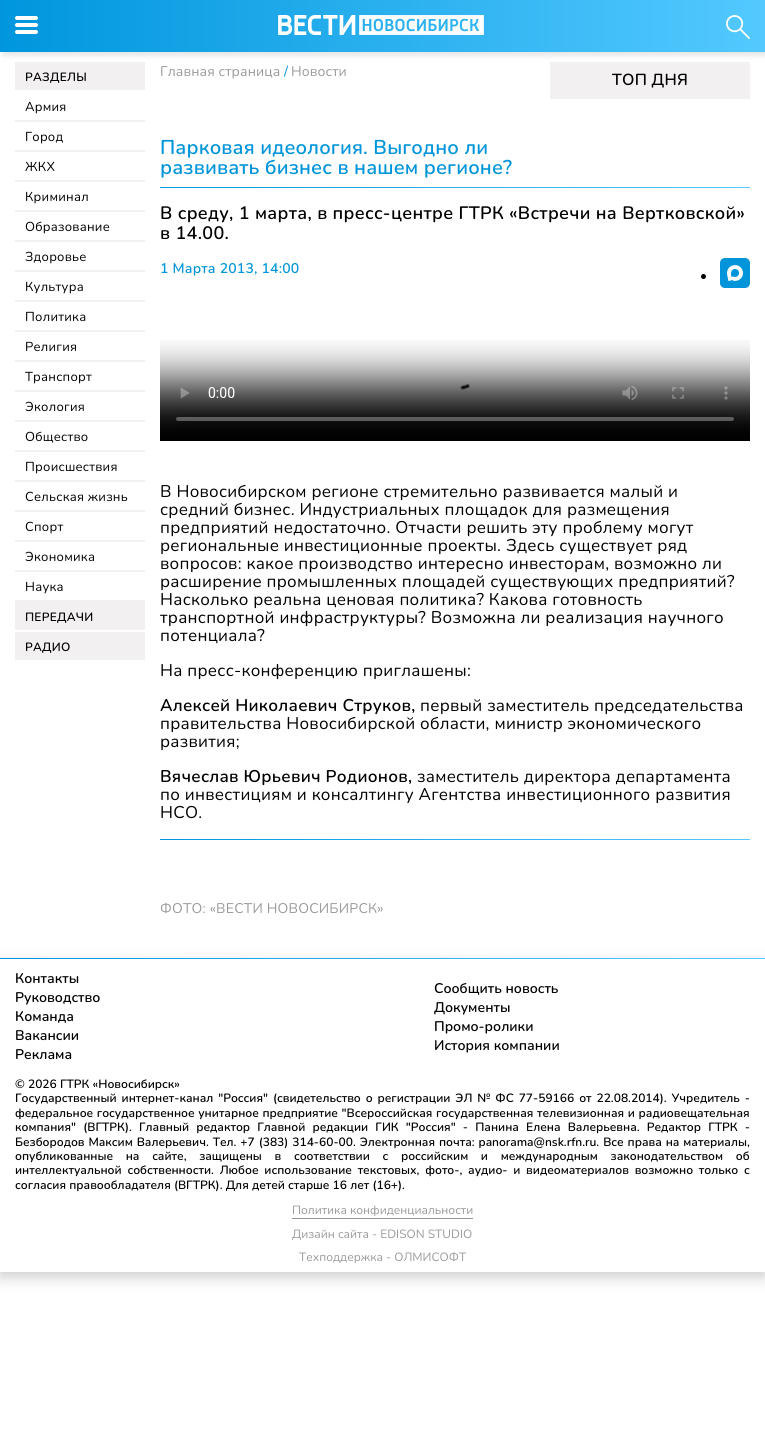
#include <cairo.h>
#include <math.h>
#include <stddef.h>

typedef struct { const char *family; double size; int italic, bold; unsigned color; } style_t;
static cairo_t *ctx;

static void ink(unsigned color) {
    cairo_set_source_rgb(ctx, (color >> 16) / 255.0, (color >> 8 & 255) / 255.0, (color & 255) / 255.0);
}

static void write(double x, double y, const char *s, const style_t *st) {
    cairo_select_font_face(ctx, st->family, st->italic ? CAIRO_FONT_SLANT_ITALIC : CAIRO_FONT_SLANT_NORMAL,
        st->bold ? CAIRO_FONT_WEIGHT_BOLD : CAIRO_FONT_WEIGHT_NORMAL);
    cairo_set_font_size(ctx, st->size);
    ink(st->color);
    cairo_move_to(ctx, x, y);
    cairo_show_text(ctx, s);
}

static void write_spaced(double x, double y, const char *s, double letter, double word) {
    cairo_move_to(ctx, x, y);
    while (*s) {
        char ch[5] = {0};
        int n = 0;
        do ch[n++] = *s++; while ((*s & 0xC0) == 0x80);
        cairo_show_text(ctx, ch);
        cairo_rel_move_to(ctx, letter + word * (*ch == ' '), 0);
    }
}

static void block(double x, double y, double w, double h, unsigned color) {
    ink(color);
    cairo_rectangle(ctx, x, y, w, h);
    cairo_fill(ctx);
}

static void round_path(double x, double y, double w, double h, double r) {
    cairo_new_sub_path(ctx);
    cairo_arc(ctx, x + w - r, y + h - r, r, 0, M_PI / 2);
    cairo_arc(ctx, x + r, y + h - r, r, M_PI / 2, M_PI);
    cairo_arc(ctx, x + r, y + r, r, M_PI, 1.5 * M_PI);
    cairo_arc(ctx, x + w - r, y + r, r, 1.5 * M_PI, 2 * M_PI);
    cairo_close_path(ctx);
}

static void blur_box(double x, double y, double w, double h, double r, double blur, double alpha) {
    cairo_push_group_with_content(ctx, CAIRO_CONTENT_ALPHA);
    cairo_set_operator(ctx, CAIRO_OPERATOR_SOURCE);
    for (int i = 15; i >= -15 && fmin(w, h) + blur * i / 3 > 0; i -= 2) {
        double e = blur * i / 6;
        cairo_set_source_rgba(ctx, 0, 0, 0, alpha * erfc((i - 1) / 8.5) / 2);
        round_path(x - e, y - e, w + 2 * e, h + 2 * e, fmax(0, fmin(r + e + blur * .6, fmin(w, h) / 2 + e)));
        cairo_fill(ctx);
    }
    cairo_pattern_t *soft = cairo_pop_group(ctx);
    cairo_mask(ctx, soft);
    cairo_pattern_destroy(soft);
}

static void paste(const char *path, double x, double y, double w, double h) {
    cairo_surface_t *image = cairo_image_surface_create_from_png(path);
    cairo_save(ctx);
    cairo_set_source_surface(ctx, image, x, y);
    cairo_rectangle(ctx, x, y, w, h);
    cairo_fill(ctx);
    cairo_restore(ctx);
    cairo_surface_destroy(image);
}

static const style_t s1 = {"Nunito SemiBold", 14, 0, 0, 0x000000};
static const style_t s2 = {"Nunito SemiBold", 12, 0, 0, 0x000000};
static const style_t s3 = {"Nunito", 12, 0, 0, 0x9a9a9a};

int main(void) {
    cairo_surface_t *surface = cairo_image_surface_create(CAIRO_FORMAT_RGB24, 765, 1436);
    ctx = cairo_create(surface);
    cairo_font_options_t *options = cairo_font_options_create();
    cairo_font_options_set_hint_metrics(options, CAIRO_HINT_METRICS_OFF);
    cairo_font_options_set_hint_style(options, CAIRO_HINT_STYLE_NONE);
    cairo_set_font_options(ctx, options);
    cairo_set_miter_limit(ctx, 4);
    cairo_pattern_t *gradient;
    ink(0xffffff);
    cairo_paint(ctx);
    block(15, 62, 130, 28, 0xf2f0f0);
    block(550, 62, 200, 37, 0xf2f0f0);
    ink(0x000000);
    blur_box(3, 4, 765, 52, 0, 2.5, 0.1);
    gradient = cairo_pattern_create_linear(765, 26, 0, 26);
    cairo_pattern_add_color_stop_rgba(gradient, 0, 0.325, 0.788, 1, 1);
    cairo_pattern_add_color_stop_rgba(gradient, 1, 0, 0.588, 0.867, 1);
    cairo_set_source(ctx, gradient);
    cairo_pattern_destroy(gradient);
    cairo_rectangle(ctx, 0, 0, 765, 52);
    cairo_fill(ctx);
    ink(0xffffff);
    round_path(15, 16, 23, 4, 2);
    cairo_fill(ctx);
    round_path(15, 23, 23, 4, 2);
    cairo_fill(ctx);
    round_path(15, 30, 23, 4, 2);
    cairo_fill(ctx);
    paste("pic1.png", 278, 15, 206, 20);
    paste("pic2.png", 726, 15, 24, 24);
    cairo_select_font_face(ctx, "Nunito SemiBold", CAIRO_FONT_SLANT_NORMAL, CAIRO_FONT_WEIGHT_NORMAL);
    cairo_set_font_size(ctx, 12);
    ink(0x000000);
    write_spaced(25, 81, "РАЗДЕЛЫ", 0.25, 0);
    block(15, 120, 130, 2, 0xf2f0f0);
    cairo_select_font_face(ctx, "Nunito", CAIRO_FONT_SLANT_NORMAL, CAIRO_FONT_WEIGHT_NORMAL);
    cairo_set_font_size(ctx, 13);
    ink(0x000000);
    write_spaced(25, 111, "Армия", 0.25, 0);
    block(15, 150, 130, 2, 0xf2f0f0);
    ink(0x000000);
    write_spaced(25, 141, "Город", 0.25, 0);
    block(15, 180, 130, 2, 0xf2f0f0);
    ink(0x000000);
    write_spaced(25, 171, "ЖКХ", 0.25, 0);
    block(15, 210, 130, 2, 0xf2f0f0);
    ink(0x000000);
    write_spaced(25, 201, "Криминал", 0.25, 0);
    block(15, 240, 130, 2, 0xf2f0f0);
    ink(0x000000);
    write_spaced(25, 231, "Образование", 0.25, 0);
    block(15, 270, 130, 2, 0xf2f0f0);
    ink(0x000000);
    write_spaced(25, 261, "Здоровье", 0.25, 0);
    block(15, 300, 130, 2, 0xf2f0f0);
    ink(0x000000);
    write_spaced(25, 291, "Культура", 0.25, 0);
    block(15, 330, 130, 2, 0xf2f0f0);
    ink(0x000000);
    write_spaced(25, 321, "Политика", 0.25, 0);
    block(15, 360, 130, 2, 0xf2f0f0);
    ink(0x000000);
    write_spaced(25, 351, "Религия", 0.25, 0);
    block(15, 390, 130, 2, 0xf2f0f0);
    ink(0x000000);
    write_spaced(25, 381, "Транспорт", 0.25, 0);
    block(15, 420, 130, 2, 0xf2f0f0);
    ink(0x000000);
    write_spaced(25, 411, "Экология", 0.25, 0);
    block(15, 450, 130, 2, 0xf2f0f0);
    ink(0x000000);
    write_spaced(25, 441, "Общество", 0.25, 0);
    block(15, 480, 130, 2, 0xf2f0f0);
    ink(0x000000);
    write_spaced(25, 471, "Происшествия", 0.25, 0);
    block(15, 510, 130, 2, 0xf2f0f0);
    ink(0x000000);
    write_spaced(25, 501, "Сельская жизнь", 0.25, 0);
    block(15, 540, 130, 2, 0xf2f0f0);
    ink(0x000000);
    write_spaced(25, 531, "Спорт", 0.25, 0);
    block(15, 570, 130, 2, 0xf2f0f0);
    ink(0x000000);
    write_spaced(25, 561, "Экономика", 0.25, 0);
    write_spaced(25, 591, "Наука", 0.25, 0);
    block(15, 600, 130, 30, 0xf2f0f0);
    cairo_select_font_face(ctx, "Nunito SemiBold", CAIRO_FONT_SLANT_NORMAL, CAIRO_FONT_WEIGHT_NORMAL);
    cairo_set_font_size(ctx, 12);
    ink(0x000000);
    write_spaced(25, 621, "ПЕРЕДАЧИ", 0.25, 0);
    block(15, 632, 130, 28, 0xf2f0f0);
    ink(0x000000);
    write_spaced(25, 651, "РАДИО", 0.25, 0);
    cairo_select_font_face(ctx, "Nunito", CAIRO_FONT_SLANT_NORMAL, CAIRO_FONT_WEIGHT_NORMAL);
    cairo_set_font_size(ctx, 14);
    ink(0x9a9a9a);
    write_spaced(160, 76, "Главная страница", 0.1, 0);
    ink(0x0095da);
    write_spaced(284, 76, "/", 0.1, 0);
    ink(0x9a9a9a);
    write_spaced(291, 76, "Новости", 0.1, 0);
    cairo_select_font_face(ctx, "Nunito SemiBold", CAIRO_FONT_SLANT_NORMAL, CAIRO_FONT_WEIGHT_NORMAL);
    cairo_set_font_size(ctx, 20);
    ink(0x0095da);
    write_spaced(160, 154, "Парковая идеология. Выгодно ли", 0.15, 0);
    write_spaced(160, 174, "развивать бизнес в нашем регионе?", 0.15, 0);
    gradient = cairo_pattern_create_linear(750, 188, 160, 187);
    cairo_pattern_add_color_stop_rgba(gradient, 0, 0.325, 0.788, 1, 1);
    cairo_pattern_add_color_stop_rgba(gradient, 1, 0, 0.588, 0.867, 1);
    cairo_set_source(ctx, gradient);
    cairo_pattern_destroy(gradient);
    cairo_rectangle(ctx, 160, 187, 590, 1);
    cairo_fill(ctx);
    cairo_set_font_size(ctx, 18);
    ink(0x000000);
    write_spaced(160, 219, "В среду, 1 марта, в пресс-центре ГТРК «Встречи на Вертковской»", 0.33, 0);
    write_spaced(160, 239, "в 14.00.", 0.33, 0);
    cairo_set_font_size(ctx, 14);
    ink(0x0095da);
    write_spaced(160, 273, "1 Марта 2013, 14:00", 0.2, 0);
    ink(0x000000);
    cairo_new_path(ctx);
    cairo_arc(ctx, 703.5, 276.5, 2.5, 0, 2 * M_PI);
    cairo_fill(ctx);
    ink(0x0094da);
    round_path(720, 258, 30, 30, 5);
    cairo_fill(ctx);
    paste("pic3.png", 727, 265, 16, 16);
    paste("pic4.png", 160, 340, 590, 101);
    cairo_select_font_face(ctx, "Nunito", CAIRO_FONT_SLANT_NORMAL, CAIRO_FONT_WEIGHT_NORMAL);
    cairo_set_font_size(ctx, 17);
    ink(0x000000);
    write_spaced(160, 497, "В Новосибирском регионе стремительно развивается малый и", 0.27, 0);
    write_spaced(160, 515, "средний бизнес. Индустриальных площадок для размещения", 0.27, 0);
    write_spaced(160, 533, "предприятий недостаточно. Отчасти решить эту проблему могут", 0.27, 0);
    write_spaced(160, 551, "региональные инвестиционные проекты. Здесь существует ряд", 0.27, 0);
    write_spaced(160, 569, "вопросов: какое производство интересно инвесторам, возможно ли", 0.27, 0);
    write_spaced(160, 587, "расширение промышленных площадей существующих предприятий?", 0.27, 0);
    write_spaced(160, 605, "Насколько реальна ценовая политика? Какова готовность", 0.27, 0);
    write_spaced(160, 623, "транспортной инфраструктуры? Возможна ли реализация научного", 0.27, 0);
    write_spaced(160, 641, "потенциала?", 0.27, 0);
    write_spaced(160, 676, "На пресс-конференцию приглашены:", 0.27, 0);
    cairo_select_font_face(ctx, "Nunito SemiBold", CAIRO_FONT_SLANT_NORMAL, CAIRO_FONT_WEIGHT_NORMAL);
    write_spaced(160, 711, "Алексей Николаевич Струков,", 0.27, 0);
    cairo_select_font_face(ctx, "Nunito", CAIRO_FONT_SLANT_NORMAL, CAIRO_FONT_WEIGHT_NORMAL);
    write_spaced(420, 711, "первый заместитель председательства", 0.27, 0);
    write_spaced(160, 729, "правительства Новосибирской области, министр экономического", 0.27, 0);
    write_spaced(160, 747, "развития;", 0.27, 0);
    cairo_select_font_face(ctx, "Nunito SemiBold", CAIRO_FONT_SLANT_NORMAL, CAIRO_FONT_WEIGHT_NORMAL);
    write_spaced(160, 782, "Вячеслав Юрьевич Родионов,", 0.27, 0);
    cairo_select_font_face(ctx, "Nunito", CAIRO_FONT_SLANT_NORMAL, CAIRO_FONT_WEIGHT_NORMAL);
    write_spaced(417, 782, "заместитель директора департамента", 0.27, 0);
    write_spaced(160, 800, "по инвестициям и консалтингу Агентства инвестиционного развития", 0.27, 0);
    write_spaced(160, 818, "НСО.", 0.27, 0);
    gradient = cairo_pattern_create_linear(750, 840, 160, 840);
    cairo_pattern_add_color_stop_rgba(gradient, 0, 0.325, 0.788, 1, 1);
    cairo_pattern_add_color_stop_rgba(gradient, 1, 0, 0.588, 0.867, 1);
    cairo_set_source(ctx, gradient);
    cairo_pattern_destroy(gradient);
    cairo_rectangle(ctx, 160, 839, 590, 1);
    cairo_fill(ctx);
    cairo_set_font_size(ctx, 14);
    ink(0x9a9a9a);
    write_spaced(160, 913, "ФОТО: «ВЕСТИ НОВОСИБИРСК»", 0.2, 0);
    cairo_select_font_face(ctx, "Nunito SemiBold", CAIRO_FONT_SLANT_NORMAL, CAIRO_FONT_WEIGHT_NORMAL);
    cairo_set_font_size(ctx, 16);
    ink(0x000000);
    write_spaced(612, 85, "ТОП ДНЯ", 0.25, 0);
    cairo_save(ctx);
    cairo_set_fill_rule(ctx, CAIRO_FILL_RULE_EVEN_ODD);
    cairo_new_path(ctx);
    cairo_move_to(ctx, 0, 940);
    cairo_line_to(ctx, 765, 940);
    cairo_line_to(ctx, 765, 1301);
    cairo_line_to(ctx, 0, 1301);
    cairo_close_path(ctx);
    cairo_move_to(ctx, 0, 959);
    cairo_line_to(ctx, 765, 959);
    cairo_line_to(ctx, 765, 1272);
    cairo_line_to(ctx, 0, 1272);
    cairo_close_path(ctx);
    cairo_clip(ctx);
    ink(0x000000);
    blur_box(0, 964, 765, 313, 0, 7.5, 0.2);
    cairo_restore(ctx);
    gradient = cairo_pattern_create_linear(765, 959, 0, 959);
    cairo_pattern_add_color_stop_rgba(gradient, 0, 0.325, 0.788, 1, 1);
    cairo_pattern_add_color_stop_rgba(gradient, 1, 0, 0.588, 0.867, 1);
    cairo_set_source(ctx, gradient);
    cairo_pattern_destroy(gradient);
    cairo_rectangle(ctx, 0, 958, 765, 1);
    cairo_fill(ctx);
    write(15, 983, "Контакты", &s1);
    write(15, 1002, "Руководство", &s1);
    write(15, 1021, "Команда", &s1);
    write(15, 1040, "Вакансии", &s1);
    write(15, 1059, "Реклама", &s1);
    write(434, 993, "Сообщить новость", &s1);
    write(434, 1012, "Документы", &s1);
    write(434, 1031, "Промо-ролики", &s1);
    write(434, 1050, "История компании", &s1);
    write(15, 1088, "© 2026 ГТРК «Новосибирск»", &s2);
    write_spaced(15, 1102, "Государственный интернет-канал \"Россия\" (свидетельство о регистрации ЭЛ № ФС 77-59166 от 22.08.2014). Учредитель -", 0, 1.75);
    write_spaced(15, 1117, "федеральное государственное унитарное предприятие \"Всероссийская государственная телевизионная и радиовещательная", 0, 0.5);
    write_spaced(15, 1131, "компания\" (ВГТРК). Главный редактор Главной редакции ГИК \"Россия\" - Панина Елена Валерьевна. Редактор ГТРК -", 0, 4);
    write_spaced(15, 1146, "Безбородов Максим Валерьевич. Тел. +7 (383) 314-60-00. Электронная почта: panorama@nsk.rfn.ru. Все права на материалы,", 0, 0.75);
    write_spaced(15, 1160, "опубликованные на сайте, защищены в соответствии с российским и международным законодательством об", 0, 9.5);
    write_spaced(15, 1174, "интеллектуальной собственности. Любое использование текстовых, фото-, аудио- и видеоматериалов возможно только с", 0, 2.6);
    write(15, 1189, "согласия правообладателя (ВГТРК). Для детей старше 16 лет (16+).", &s2);
    block(292, 1218, 181, 1, 0x959595);
    write(292, 1214, "Политика конфиденциальности", &s3);
    write(292, 1238, "Дизайн сайта - EDISON STUDIO", &s3);
    write(299, 1261, "Техподдержка - ОЛМИСОФТ", &s3);
    cairo_surface_write_to_png(surface, "screenshot.png");
    cairo_font_options_destroy(options);
    cairo_destroy(ctx);
    cairo_surface_destroy(surface);
    return 0;
}
